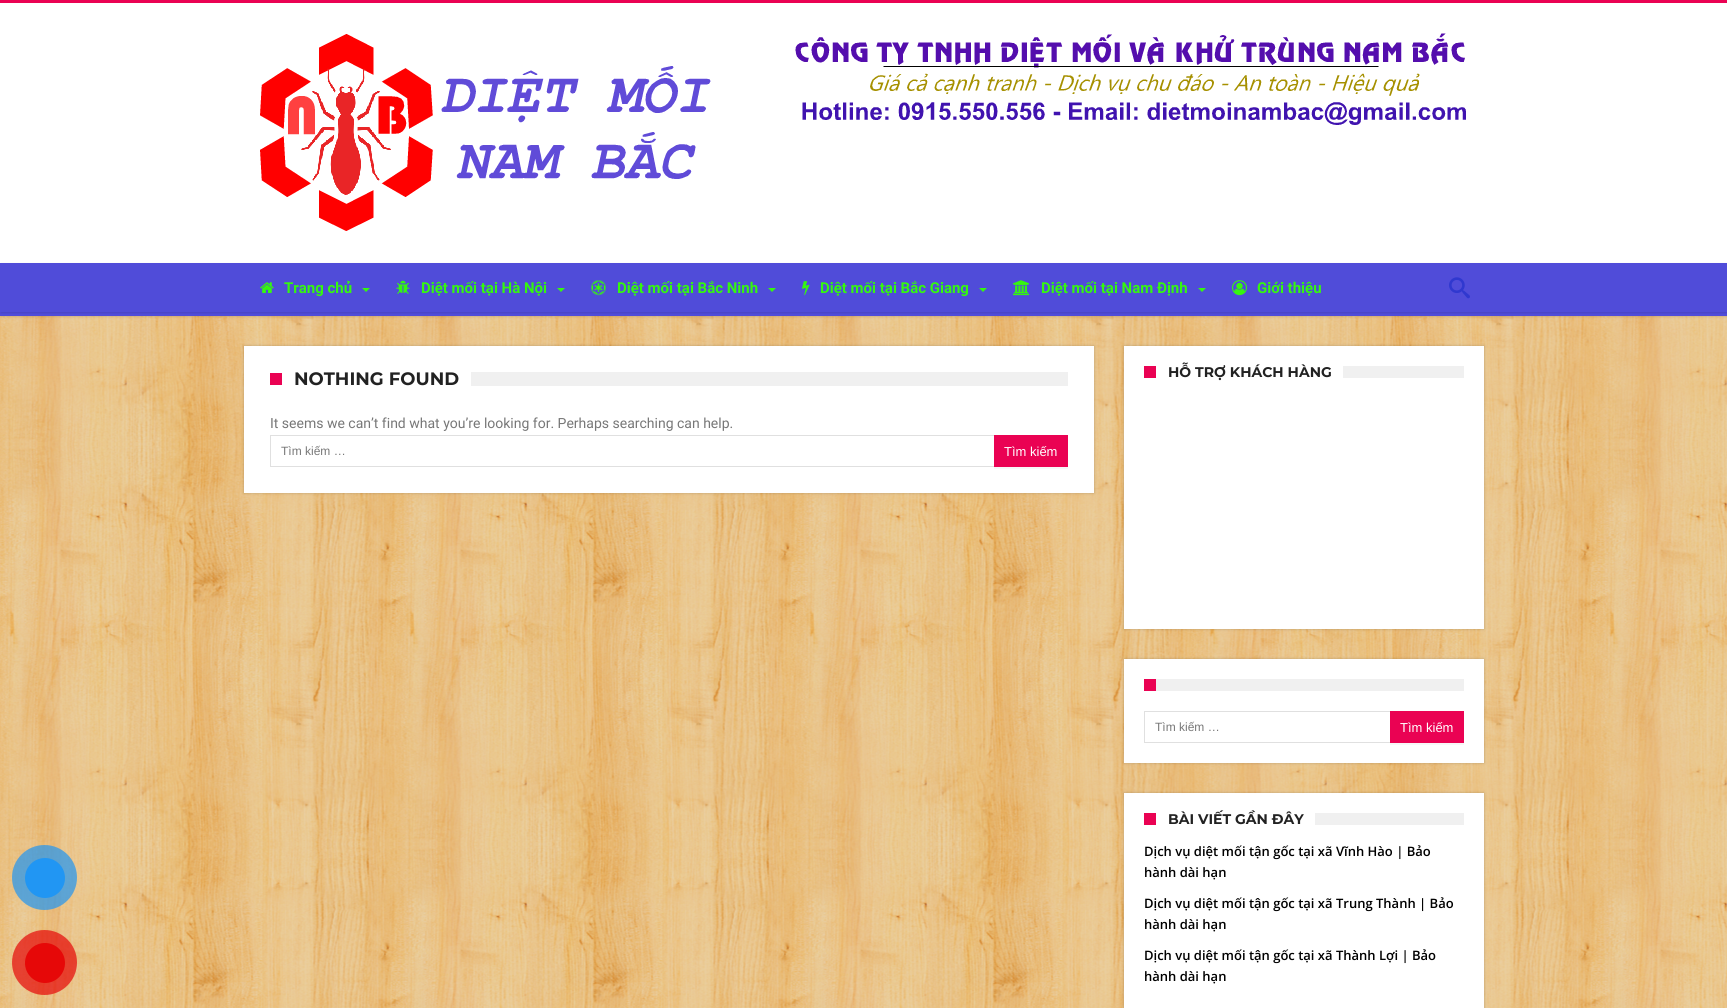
#include <cairo.h>
#include <math.h>
#include <stddef.h>

typedef struct { const char *family; double size; int italic, bold; unsigned color; } style_t;
static cairo_t *ctx;

static void ink(unsigned color) {
    cairo_set_source_rgb(ctx, (color >> 16) / 255.0, (color >> 8 & 255) / 255.0, (color & 255) / 255.0);
}

static void write(double x, double y, const char *s, const style_t *st) {
    cairo_select_font_face(ctx, st->family, st->italic ? CAIRO_FONT_SLANT_ITALIC : CAIRO_FONT_SLANT_NORMAL,
        st->bold ? CAIRO_FONT_WEIGHT_BOLD : CAIRO_FONT_WEIGHT_NORMAL);
    cairo_set_font_size(ctx, st->size);
    ink(st->color);
    cairo_move_to(ctx, x, y);
    cairo_show_text(ctx, s);
}

static void block(double x, double y, double w, double h, unsigned color) {
    ink(color);
    cairo_rectangle(ctx, x, y, w, h);
    cairo_fill(ctx);
}

static void round_path(double x, double y, double w, double h, double r) {
    cairo_new_sub_path(ctx);
    cairo_arc(ctx, x + w - r, y + h - r, r, 0, M_PI / 2);
    cairo_arc(ctx, x + r, y + h - r, r, M_PI / 2, M_PI);
    cairo_arc(ctx, x + r, y + r, r, M_PI, 1.5 * M_PI);
    cairo_arc(ctx, x + w - r, y + r, r, 1.5 * M_PI, 2 * M_PI);
    cairo_close_path(ctx);
}

static void blur_box(double x, double y, double w, double h, double r, double blur, double alpha) {
    cairo_push_group_with_content(ctx, CAIRO_CONTENT_ALPHA);
    cairo_set_operator(ctx, CAIRO_OPERATOR_SOURCE);
    for (int i = 15; i >= -15 && fmin(w, h) + blur * i / 3 > 0; i -= 2) {
        double e = blur * i / 6;
        cairo_set_source_rgba(ctx, 0, 0, 0, alpha * erfc((i - 1) / 8.5) / 2);
        round_path(x - e, y - e, w + 2 * e, h + 2 * e, fmax(0, fmin(r + e + blur * .6, fmin(w, h) / 2 + e)));
        cairo_fill(ctx);
    }
    cairo_pattern_t *soft = cairo_pop_group(ctx);
    cairo_mask(ctx, soft);
    cairo_pattern_destroy(soft);
}

static void paste(const char *path, double x, double y, double w, double h) {
    cairo_surface_t *image = cairo_image_surface_create_from_png(path);
    cairo_save(ctx);
    cairo_set_source_surface(ctx, image, x, y);
    cairo_rectangle(ctx, x, y, w, h);
    cairo_fill(ctx);
    cairo_restore(ctx);
    cairo_surface_destroy(image);
}

static const style_t s1 = {"Roboto", 15, 0, 1, 0x35f70f};
static const style_t s2 = {"Montserrat", 18, 0, 1, 0x222222};
static const style_t s3 = {"Roboto", 14, 0, 0, 0x777777};
static const style_t s4 = {"Liberation Sans", 12, 0, 0, 0x777777};
static const style_t s5 = {"Liberation Sans", 13, 0, 0, 0xffffff};
static const style_t s6 = {"Montserrat", 14, 0, 1, 0x222222};
static const style_t s7 = {"Open Sans SemiBold", 13, 0, 0, 0x000000};

int main(void) {
    cairo_surface_t *surface = cairo_image_surface_create(CAIRO_FORMAT_RGB24, 1727, 1008);
    ctx = cairo_create(surface);
    cairo_font_options_t *options = cairo_font_options_create();
    cairo_font_options_set_hint_metrics(options, CAIRO_HINT_METRICS_OFF);
    cairo_font_options_set_hint_style(options, CAIRO_HINT_STYLE_NONE);
    cairo_set_font_options(ctx, options);
    cairo_set_miter_limit(ctx, 4);
    ink(0xffffff);
    cairo_paint(ctx);
    paste("pic1.png", 0, 316, 1727, 692);
    cairo_set_source_rgba(ctx, 0.129, 0.588, 0.953, 0.7);
    cairo_arc(ctx, 44.5, 877.5, 32.5, 0, 2 * M_PI);
    cairo_fill(ctx);
    ink(0x2196f3);
    cairo_arc(ctx, 45, 878, 20, 0, 2 * M_PI);
    cairo_fill(ctx);
    cairo_set_source_rgba(ctx, 0.902, 0.031, 0.031, 0.7);
    cairo_arc(ctx, 44.5, 962.5, 32.5, 0, 2 * M_PI);
    cairo_fill(ctx);
    ink(0xe60808);
    cairo_arc(ctx, 45, 963, 20, 0, 2 * M_PI);
    cairo_fill(ctx);
    block(0, 0, 1727, 3, 0xea0253);
    paste("pic2.png", 260, 34, 451, 197);
    paste("pic3.png", 795, 33, 671, 92);
    ink(0x000000);
    blur_box(1, 264, 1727, 53, 0, 1, 0.11);
    block(0, 263, 1727, 53, 0x504cd9);
    cairo_save(ctx);
    cairo_rectangle(ctx, 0, 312, 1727, 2);
    cairo_clip(ctx);
    ink(0x000000);
    blur_box(1, 265, 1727, 48, 0, 1, 0.11);
    cairo_restore(ctx);
    paste("pic4.png", 260, 282, 14, 11);
    write(284, 293, "Trang chủ", &s1);
    cairo_new_path(ctx);
    cairo_move_to(ctx, 362, 288);
    cairo_line_to(ctx, 370, 288);
    cairo_line_to(ctx, 366, 292);
    cairo_close_path(ctx);
    cairo_fill(ctx);
    paste("pic5.png", 396, 280, 14, 14);
    write(421, 293, "Diệt mối tại Hà Nội", &s1);
    cairo_new_path(ctx);
    cairo_move_to(ctx, 557, 288);
    cairo_line_to(ctx, 565, 288);
    cairo_line_to(ctx, 561, 292);
    cairo_close_path(ctx);
    cairo_fill(ctx);
    paste("pic6.png", 591, 280, 15, 16);
    write(617, 293, "Diệt mối tại Bắc Ninh", &s1);
    cairo_new_path(ctx);
    cairo_move_to(ctx, 768, 288);
    cairo_line_to(ctx, 776, 288);
    cairo_line_to(ctx, 772, 292);
    cairo_close_path(ctx);
    cairo_fill(ctx);
    paste("pic7.png", 802, 281, 8, 15);
    write(820, 293, "Diệt mối tại Bắc Giang", &s1);
    cairo_new_path(ctx);
    cairo_move_to(ctx, 979, 288);
    cairo_line_to(ctx, 987, 288);
    cairo_line_to(ctx, 983, 292);
    cairo_close_path(ctx);
    cairo_fill(ctx);
    paste("pic8.png", 1013, 280, 17, 16);
    write(1041, 293, "Diệt mối tại Nam Định", &s1);
    cairo_new_path(ctx);
    cairo_move_to(ctx, 1198, 288);
    cairo_line_to(ctx, 1206, 288);
    cairo_line_to(ctx, 1202, 292);
    cairo_close_path(ctx);
    cairo_fill(ctx);
    paste("pic9.png", 1232, 280, 15, 16);
    write(1257, 293, "Giới thiệu", &s1);
    paste("pic10.png", 1449, 277, 21, 22);
    ink(0x000000);
    blur_box(244, 346, 850, 147, 0, 1.5, 0.21);
    block(244, 346, 850, 147, 0xffffff);
    block(471, 372, 597, 14, 0xf0f0f0);
    block(270, 373, 12, 12, 0xea0253);
    write(294, 385, "NOTHING FOUND", &s2);
    write(270, 428, "It seems we can’t find what you’re looking for. Perhaps searching can help.", &s3);
    cairo_rectangle(ctx, 270.5, 435.5, 797, 31);
    ink(0xe0e0e0);
    cairo_set_line_width(ctx, 1);
    cairo_stroke(ctx);
    write(281, 455, "Tìm kiếm …", &s4);
    block(994, 467, 74, 2, 0xf7f7f7);
    block(994, 435, 74, 32, 0xea0253);
    write(1004, 456, "Tìm kiếm", &s5);
    ink(0x000000);
    blur_box(1124, 346, 360, 283, 0, 1.5, 0.21);
    block(1124, 346, 360, 283, 0xffffff);
    block(1343, 366, 121, 12, 0xf0f0f0);
    block(1144, 366, 12, 12, 0xea0253);
    write(1168, 377, "HỖ TRỢ KHÁCH HÀNG", &s6);
    ink(0x000000);
    blur_box(1124, 659, 360, 104, 0, 1.5, 0.21);
    block(1124, 659, 360, 104, 0xffffff);
    block(1156, 679, 308, 12, 0xf0f0f0);
    block(1144, 679, 12, 12, 0xea0253);
    cairo_rectangle(ctx, 1144.5, 711.5, 319, 31);
    ink(0xe0e0e0);
    cairo_stroke(ctx);
    write(1155, 731, "Tìm kiếm …", &s4);
    block(1390, 743, 74, 2, 0xf7f7f7);
    block(1390, 711, 74, 32, 0xea0253);
    write(1400, 732, "Tìm kiếm", &s5);
    ink(0x000000);
    blur_box(1124, 793, 360, 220, 0, 1.5, 0.21);
    block(1124, 793, 360, 215, 0xffffff);
    block(1315, 813, 149, 12, 0xf0f0f0);
    block(1144, 813, 12, 12, 0xea0253);
    write(1168, 824, "BÀI VIẾT GẦN ĐÂY", &s6);
    write(1144, 856, "Dịch vụ diệt mối tận gốc tại xã Vĩnh Hào | Bảo", &s7);
    write(1144, 877, "hành dài hạn", &s7);
    write(1144, 908, "Dịch vụ diệt mối tận gốc tại xã Trung Thành | Bảo", &s7);
    write(1144, 929, "hành dài hạn", &s7);
    write(1144, 960, "Dịch vụ diệt mối tận gốc tại xã Thành Lợi | Bảo", &s7);
    write(1144, 981, "hành dài hạn", &s7);
    cairo_surface_write_to_png(surface, "screenshot.png");
    cairo_font_options_destroy(options);
    cairo_destroy(ctx);
    cairo_surface_destroy(surface);
    return 0;
}
